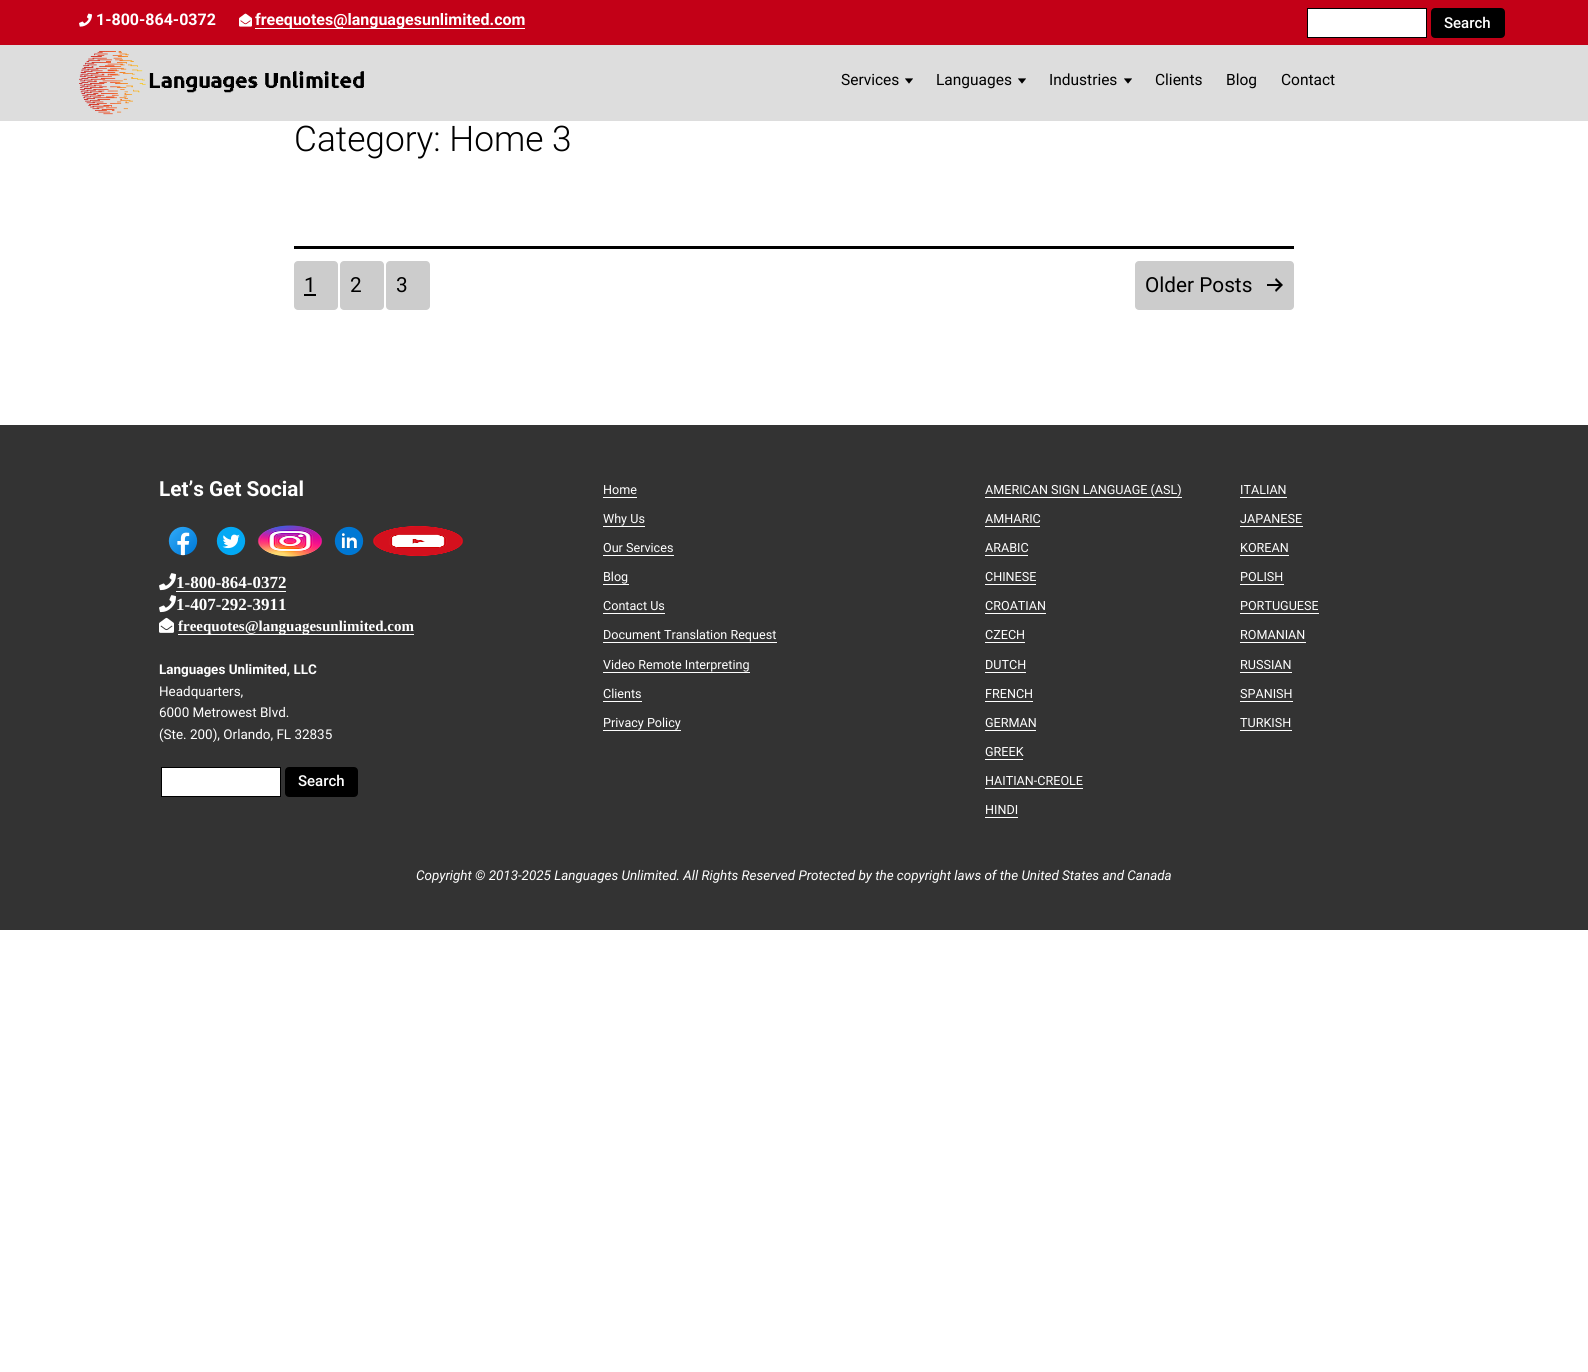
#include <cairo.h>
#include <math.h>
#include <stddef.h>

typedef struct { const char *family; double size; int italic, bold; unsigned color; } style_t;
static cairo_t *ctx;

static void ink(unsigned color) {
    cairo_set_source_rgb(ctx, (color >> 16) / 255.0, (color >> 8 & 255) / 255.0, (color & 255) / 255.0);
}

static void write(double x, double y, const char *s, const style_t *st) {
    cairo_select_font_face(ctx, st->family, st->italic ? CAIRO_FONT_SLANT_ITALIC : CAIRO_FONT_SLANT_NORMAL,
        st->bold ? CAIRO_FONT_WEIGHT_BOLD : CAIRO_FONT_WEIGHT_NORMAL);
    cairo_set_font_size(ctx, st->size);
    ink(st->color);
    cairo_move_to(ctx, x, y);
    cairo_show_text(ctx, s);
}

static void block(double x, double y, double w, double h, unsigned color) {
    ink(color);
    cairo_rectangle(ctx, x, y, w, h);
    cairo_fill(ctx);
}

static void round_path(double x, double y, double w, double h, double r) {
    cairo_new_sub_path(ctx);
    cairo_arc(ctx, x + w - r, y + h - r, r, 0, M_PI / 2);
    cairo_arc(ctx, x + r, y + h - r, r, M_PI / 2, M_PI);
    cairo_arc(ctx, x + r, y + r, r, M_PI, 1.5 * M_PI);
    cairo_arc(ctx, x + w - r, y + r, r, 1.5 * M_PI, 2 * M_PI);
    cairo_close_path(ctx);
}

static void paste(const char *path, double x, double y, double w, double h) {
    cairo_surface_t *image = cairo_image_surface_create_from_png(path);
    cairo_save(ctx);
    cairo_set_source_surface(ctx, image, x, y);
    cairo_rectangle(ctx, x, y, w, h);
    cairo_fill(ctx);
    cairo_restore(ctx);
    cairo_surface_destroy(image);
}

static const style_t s1 = {"Roboto", 16, 0, 1, 0xffffff};
static const style_t s2 = {"Roboto Medium", 15, 0, 0, 0xffffff};
static const style_t s3 = {"Roboto", 15.5, 0, 0, 0x000000};
static const style_t s4 = {"Roboto Light", 35.25, 0, 0, 0x000000};
static const style_t s5 = {"Roboto", 20.75, 0, 0, 0x000000};
static const style_t s6 = {"Roboto", 20.75, 0, 1, 0xffffff};
static const style_t s7 = {"Liberation Serif", 17, 0, 1, 0xffffff};
static const style_t s8 = {"Liberation Serif", 15, 0, 1, 0xffffff};
static const style_t s9 = {"Roboto", 13.45, 0, 1, 0xffffff};
static const style_t s10 = {"Roboto", 13.45, 0, 0, 0xffffff};
static const style_t s11 = {"Roboto", 12.6, 0, 0, 0xffffff};
static const style_t s12 = {"Roboto", 13.45, 1, 0, 0xffffff};

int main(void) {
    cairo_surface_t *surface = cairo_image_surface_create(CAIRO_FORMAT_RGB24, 1588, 1372);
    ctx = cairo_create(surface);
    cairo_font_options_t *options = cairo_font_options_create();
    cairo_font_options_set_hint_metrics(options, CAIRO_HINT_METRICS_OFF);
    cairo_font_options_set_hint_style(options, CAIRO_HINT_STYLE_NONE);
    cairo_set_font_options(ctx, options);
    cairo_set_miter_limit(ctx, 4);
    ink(0xffffff);
    cairo_paint(ctx);
    block(0, 0, 1588, 45, 0xc30017);
    paste("pic1.png", 79, 13, 13, 14);
    write(96, 25, "1-800-864-0372", &s1);
    paste("pic2.png", 239, 13, 13, 14);
    block(255, 28, 270, 1, 0xffffff);
    write(255, 25, "freequotes@languagesunlimited.com", &s1);
    cairo_rectangle(ctx, 1307.5, 8.5, 119, 29);
    cairo_fill_preserve(ctx);
    ink(0x000000);
    cairo_set_line_width(ctx, 1);
    cairo_stroke(ctx);
    round_path(1432.5, 9.5, 71, 27, 2.5);
    cairo_fill_preserve(ctx);
    cairo_set_line_width(ctx, 3);
    cairo_stroke(ctx);
    write(1444, 28, "Search", &s2);
    block(0, 45, 1588, 76, 0xdddddd);
    paste("pic3.png", 79, 51, 285, 64);
    write(841, 85, "Services", &s3);
    paste("pic4.png", 905, 78, 8, 6);
    write(936, 85, "Languages", &s3);
    paste("pic4.png", 1018, 78, 8, 6);
    write(1049, 85, "Industries", &s3);
    paste("pic4.png", 1124, 78, 8, 6);
    write(1155, 85, "Clients", &s3);
    write(1226, 85, "Blog", &s3);
    write(1281, 85, "Contact", &s3);
    write(294, 151, "Category: Home 3", &s4);
    block(294, 246, 1000, 3, 0x000000);
    ink(0xcccccc);
    round_path(294, 261, 44, 49, 4);
    cairo_fill(ctx);
    write(304, 292, "1", &s5);
    block(304, 294, 12, 2, 0x000000);
    ink(0xcccccc);
    round_path(340, 261, 44, 49, 4);
    cairo_fill(ctx);
    write(350, 292, "2", &s5);
    ink(0xcccccc);
    round_path(386, 261, 44, 49, 4);
    cairo_fill(ctx);
    write(396, 292, "3", &s5);
    ink(0xcccccc);
    round_path(1135, 261, 159, 49, 4);
    cairo_fill(ctx);
    write(1145, 292, "Older Posts", &s5);
    paste("pic5.png", 1267, 278, 16, 14);
    block(0, 425, 1588, 505, 0x333333);
    write(159, 496, "Let’s Get Social", &s6);
    paste("pic6.png", 168, 526, 30, 30);
    paste("pic7.png", 216, 526, 30, 30);
    paste("pic8.png", 255, 525, 69, 32);
    paste("pic9.png", 334, 526, 30, 30);
    paste("pic10.png", 373, 526, 90, 30);
    paste("pic11.png", 159, 573, 17, 18);
    write(176, 588, "1-800-864-0372", &s7);
    block(176, 591, 110, 1, 0xffffff);
    paste("pic11.png", 159, 595, 17, 18);
    write(176, 610, "1-407-292-3911", &s7);
    paste("pic12.png", 159, 617, 15, 16);
    block(178, 634, 236, 1, 0xffffff);
    write(178, 631, "freequotes@languagesunlimited.com", &s8);
    write(159, 674, "Languages Unlimited, LLC", &s9);
    write(159, 696, "Headquarters,", &s10);
    write(159, 717, "6000 Metrowest Blvd.", &s10);
    write(159, 739, "(Ste. 200), Orlando, FL 32835", &s10);
    cairo_rectangle(ctx, 161.5, 767.5, 119, 29);
    cairo_fill_preserve(ctx);
    ink(0x000000);
    cairo_set_line_width(ctx, 1);
    cairo_stroke(ctx);
    round_path(286.5, 768.5, 70, 27, 2.5);
    cairo_fill_preserve(ctx);
    cairo_set_line_width(ctx, 3);
    cairo_stroke(ctx);
    write(298, 786, "Search", &s2);
    write(603, 494, "Home", &s11);
    block(603, 497, 34, 1, 0xffffff);
    write(603, 523, "Why Us", &s11);
    block(603, 526, 42, 1, 0xffffff);
    write(603, 552, "Our Services", &s11);
    block(603, 555, 71, 1, 0xffffff);
    write(603, 581, "Blog", &s11);
    block(603, 584, 26, 1, 0xffffff);
    write(603, 610, "Contact Us", &s11);
    block(603, 613, 62, 1, 0xffffff);
    write(603, 639, "Document Translation Request", &s11);
    block(603, 642, 174, 1, 0xffffff);
    write(603, 669, "Video Remote Interpreting", &s11);
    block(603, 672, 147, 1, 0xffffff);
    write(603, 698, "Clients", &s11);
    block(603, 701, 39, 1, 0xffffff);
    write(603, 727, "Privacy Policy", &s11);
    block(603, 730, 78, 1, 0xffffff);
    write(985, 494, "AMERICAN SIGN LANGUAGE (ASL)", &s11);
    block(985, 497, 197, 1, 0xffffff);
    write(1240, 494, "ITALIAN", &s11);
    block(1240, 497, 47, 1, 0xffffff);
    write(985, 523, "AMHARIC", &s11);
    block(985, 526, 55, 1, 0xffffff);
    write(1240, 523, "JAPANESE", &s11);
    block(1240, 526, 63, 1, 0xffffff);
    write(985, 552, "ARABIC", &s11);
    block(985, 555, 43, 1, 0xffffff);
    write(1240, 552, "KOREAN", &s11);
    block(1240, 555, 49, 1, 0xffffff);
    write(985, 581, "CHINESE", &s11);
    block(985, 584, 51, 1, 0xffffff);
    write(1240, 581, "POLISH", &s11);
    block(1240, 584, 44, 1, 0xffffff);
    write(985, 610, "CROATIAN", &s11);
    block(985, 613, 61, 1, 0xffffff);
    write(1240, 610, "PORTUGUESE", &s11);
    block(1240, 613, 79, 1, 0xffffff);
    write(985, 639, "CZECH", &s11);
    block(985, 642, 40, 1, 0xffffff);
    write(1240, 639, "ROMANIAN", &s11);
    block(1240, 642, 66, 1, 0xffffff);
    write(985, 669, "DUTCH", &s11);
    block(985, 672, 41, 1, 0xffffff);
    write(1240, 669, "RUSSIAN", &s11);
    block(1240, 672, 52, 1, 0xffffff);
    write(985, 698, "FRENCH", &s11);
    block(985, 701, 48, 1, 0xffffff);
    write(1240, 698, "SPANISH", &s11);
    block(1240, 701, 53, 1, 0xffffff);
    write(985, 727, "GERMAN", &s11);
    block(985, 730, 51, 1, 0xffffff);
    write(1240, 727, "TURKISH", &s11);
    block(1240, 730, 52, 1, 0xffffff);
    write(985, 756, "GREEK", &s11);
    block(985, 759, 38, 1, 0xffffff);
    write(985, 785, "HAITIAN-CREOLE", &s11);
    block(985, 788, 98, 1, 0xffffff);
    write(985, 814, "HINDI", &s11);
    block(985, 817, 33, 1, 0xffffff);
    write(416, 880, "Copyright © 2013-2025 Languages Unlimited. All Rights Reserved Protected by the copyright laws of the United States and Canada", &s12);
    cairo_surface_write_to_png(surface, "screenshot.png");
    cairo_font_options_destroy(options);
    cairo_destroy(ctx);
    cairo_surface_destroy(surface);
    return 0;
}
